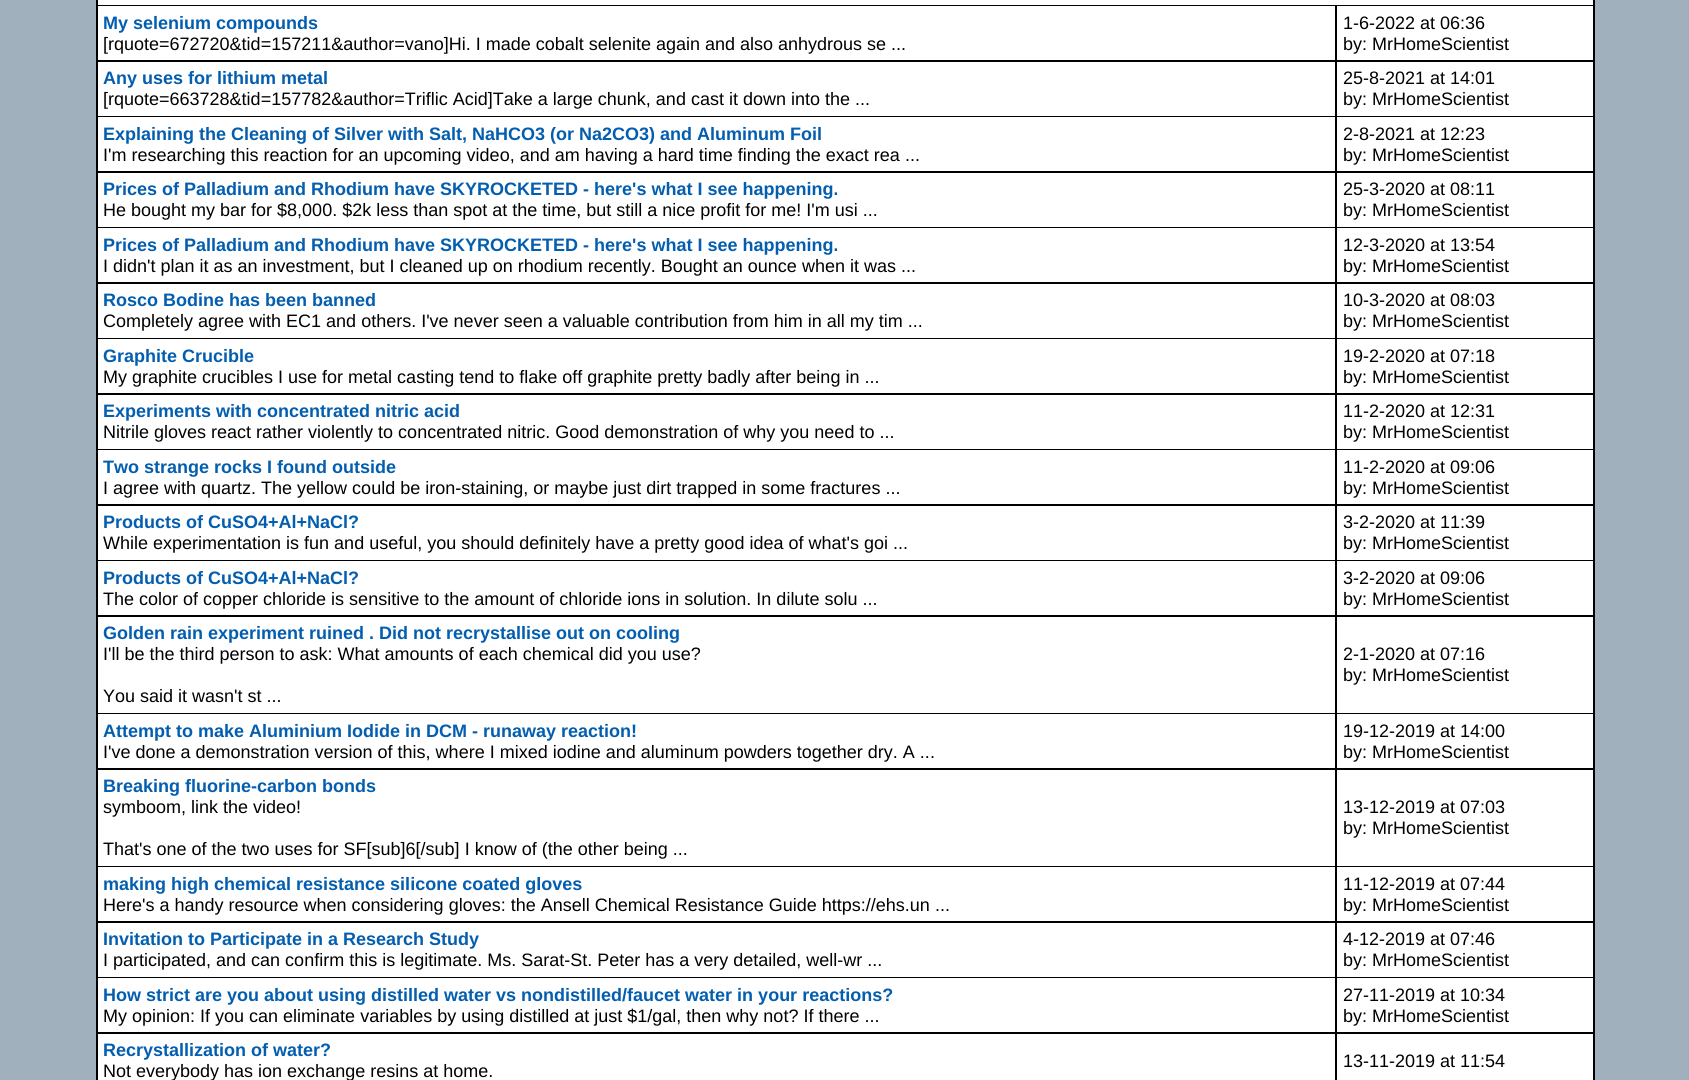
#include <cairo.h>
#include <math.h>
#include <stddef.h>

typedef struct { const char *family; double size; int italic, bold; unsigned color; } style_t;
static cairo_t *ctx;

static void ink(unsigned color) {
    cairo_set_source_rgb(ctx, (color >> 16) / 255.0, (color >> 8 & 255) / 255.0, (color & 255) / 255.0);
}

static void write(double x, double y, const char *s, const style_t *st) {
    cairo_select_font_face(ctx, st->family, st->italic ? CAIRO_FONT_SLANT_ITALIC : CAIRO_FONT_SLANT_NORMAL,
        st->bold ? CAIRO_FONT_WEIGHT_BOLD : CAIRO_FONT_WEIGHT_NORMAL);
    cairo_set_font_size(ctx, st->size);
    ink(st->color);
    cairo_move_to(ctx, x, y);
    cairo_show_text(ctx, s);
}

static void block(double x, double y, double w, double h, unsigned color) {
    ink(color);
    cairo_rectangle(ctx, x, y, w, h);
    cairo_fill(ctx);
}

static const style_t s1 = {"Liberation Sans", 18, 0, 1, 0x035eb0};
static const style_t s2 = {"Liberation Sans", 18, 0, 0, 0x000000};

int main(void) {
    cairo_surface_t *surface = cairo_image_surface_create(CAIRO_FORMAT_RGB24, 1689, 1080);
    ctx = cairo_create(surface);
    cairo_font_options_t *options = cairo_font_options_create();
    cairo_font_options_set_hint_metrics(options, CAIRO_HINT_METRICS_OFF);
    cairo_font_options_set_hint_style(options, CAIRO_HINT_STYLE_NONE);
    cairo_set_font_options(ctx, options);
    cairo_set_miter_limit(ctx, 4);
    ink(0xa0b0bc);
    cairo_paint(ctx);
    block(96, 0, 1499, 1080, 0x000000);
    block(98, 0, 1495, 5, 0xffffff);
    block(98, 6, 1237, 54, 0xffffff);
    write(103, 29, "My selenium compounds", &s1);
    write(103, 50, "[rquote=672720&tid=157211&author=vano]Hi. I made cobalt selenite again and also anhydrous se ...", &s2);
    block(1337, 6, 256, 54, 0xffffff);
    write(1343, 29, "1-6-2022 at 06:36", &s2);
    write(1343, 50, "by: MrHomeScientist", &s2);
    block(98, 62, 1237, 54, 0xffffff);
    write(103, 84, "Any uses for lithium metal", &s1);
    write(103, 105, "[rquote=663728&tid=157782&author=Triflic Acid]Take a large chunk, and cast it down into the ...", &s2);
    block(1337, 62, 256, 54, 0xffffff);
    write(1343, 84, "25-8-2021 at 14:01", &s2);
    write(1343, 105, "by: MrHomeScientist", &s2);
    block(98, 117, 1237, 54, 0xffffff);
    write(103, 140, "Explaining the Cleaning of Silver with Salt, NaHCO3 (or Na2CO3) and Aluminum Foil", &s1);
    write(103, 161, "I'm researching this reaction for an upcoming video, and am having a hard time finding the exact rea ...", &s2);
    block(1337, 117, 256, 54, 0xffffff);
    write(1343, 140, "2-8-2021 at 12:23", &s2);
    write(1343, 161, "by: MrHomeScientist", &s2);
    block(98, 173, 1237, 54, 0xffffff);
    write(103, 195, "Prices of Palladium and Rhodium have SKYROCKETED - here's what I see happening.", &s1);
    write(103, 216, "He bought my bar for $8,000. $2k less than spot at the time, but still a nice profit for me! I'm usi ...", &s2);
    block(1337, 173, 256, 54, 0xffffff);
    write(1343, 195, "25-3-2020 at 08:11", &s2);
    write(1343, 216, "by: MrHomeScientist", &s2);
    block(98, 228, 1237, 54, 0xffffff);
    write(103, 251, "Prices of Palladium and Rhodium have SKYROCKETED - here's what I see happening.", &s1);
    write(103, 272, "I didn't plan it as an investment, but I cleaned up on rhodium recently. Bought an ounce when it was ...", &s2);
    block(1337, 228, 256, 54, 0xffffff);
    write(1343, 251, "12-3-2020 at 13:54", &s2);
    write(1343, 272, "by: MrHomeScientist", &s2);
    block(98, 284, 1237, 54, 0xffffff);
    write(103, 306, "Rosco Bodine has been banned", &s1);
    write(103, 327, "Completely agree with EC1 and others. I've never seen a valuable contribution from him in all my tim ...", &s2);
    block(1337, 284, 256, 54, 0xffffff);
    write(1343, 306, "10-3-2020 at 08:03", &s2);
    write(1343, 327, "by: MrHomeScientist", &s2);
    block(98, 339, 1237, 54, 0xffffff);
    write(103, 362, "Graphite Crucible", &s1);
    write(103, 383, "My graphite crucibles I use for metal casting tend to flake off graphite pretty badly after being in ...", &s2);
    block(1337, 339, 256, 54, 0xffffff);
    write(1343, 362, "19-2-2020 at 07:18", &s2);
    write(1343, 383, "by: MrHomeScientist", &s2);
    block(98, 395, 1237, 54, 0xffffff);
    write(103, 417, "Experiments with concentrated nitric acid", &s1);
    write(103, 438, "Nitrile gloves react rather violently to concentrated nitric. Good demonstration of why you need to ...", &s2);
    block(1337, 395, 256, 54, 0xffffff);
    write(1343, 417, "11-2-2020 at 12:31", &s2);
    write(1343, 438, "by: MrHomeScientist", &s2);
    block(98, 450, 1237, 54, 0xffffff);
    write(103, 473, "Two strange rocks I found outside", &s1);
    write(103, 494, "I agree with quartz. The yellow could be iron-staining, or maybe just dirt trapped in some fractures ...", &s2);
    block(1337, 450, 256, 54, 0xffffff);
    write(1343, 473, "11-2-2020 at 09:06", &s2);
    write(1343, 494, "by: MrHomeScientist", &s2);
    block(98, 506, 1237, 54, 0xffffff);
    write(103, 528, "Products of CuSO4+Al+NaCl?", &s1);
    write(103, 549, "While experimentation is fun and useful, you should definitely have a pretty good idea of what's goi ...", &s2);
    block(1337, 506, 256, 54, 0xffffff);
    write(1343, 528, "3-2-2020 at 11:39", &s2);
    write(1343, 549, "by: MrHomeScientist", &s2);
    block(98, 561, 1237, 54, 0xffffff);
    write(103, 584, "Products of CuSO4+Al+NaCl?", &s1);
    write(103, 605, "The color of copper chloride is sensitive to the amount of chloride ions in solution. In dilute solu ...", &s2);
    block(1337, 561, 256, 54, 0xffffff);
    write(1343, 584, "3-2-2020 at 09:06", &s2);
    write(1343, 605, "by: MrHomeScientist", &s2);
    block(98, 617, 1237, 96, 0xffffff);
    write(103, 639, "Golden rain experiment ruined . Did not recrystallise out on cooling", &s1);
    write(103, 660, "I'll be the third person to ask: What amounts of each chemical did you use?", &s2);
    write(103, 702, "You said it wasn't st ...", &s2);
    block(1337, 617, 256, 96, 0xffffff);
    write(1343, 660, "2-1-2020 at 07:16", &s2);
    write(1343, 681, "by: MrHomeScientist", &s2);
    block(98, 714, 1237, 54, 0xffffff);
    write(103, 737, "Attempt to make Aluminium Iodide in DCM - runaway reaction!", &s1);
    write(103, 758, "I've done a demonstration version of this, where I mixed iodine and aluminum powders together dry. A ...", &s2);
    block(1337, 714, 256, 54, 0xffffff);
    write(1343, 737, "19-12-2019 at 14:00", &s2);
    write(1343, 758, "by: MrHomeScientist", &s2);
    block(98, 770, 1237, 96, 0xffffff);
    write(103, 792, "Breaking fluorine-carbon bonds", &s1);
    write(103, 813, "symboom, link the video!", &s2);
    write(103, 855, "That's one of the two uses for SF[sub]6[/sub] I know of (the other being ...", &s2);
    block(1337, 770, 256, 96, 0xffffff);
    write(1343, 813, "13-12-2019 at 07:03", &s2);
    write(1343, 834, "by: MrHomeScientist", &s2);
    block(98, 867, 1237, 54, 0xffffff);
    write(103, 890, "making high chemical resistance silicone coated gloves", &s1);
    write(103, 911, "Here's a handy resource when considering gloves: the Ansell Chemical Resistance Guide https://ehs.un ...", &s2);
    block(1337, 867, 256, 54, 0xffffff);
    write(1343, 890, "11-12-2019 at 07:44", &s2);
    write(1343, 911, "by: MrHomeScientist", &s2);
    block(98, 923, 1237, 54, 0xffffff);
    write(103, 945, "Invitation to Participate in a Research Study", &s1);
    write(103, 966, "I participated, and can confirm this is legitimate. Ms. Sarat-St. Peter has a very detailed, well-wr ...", &s2);
    block(1337, 923, 256, 54, 0xffffff);
    write(1343, 945, "4-12-2019 at 07:46", &s2);
    write(1343, 966, "by: MrHomeScientist", &s2);
    block(98, 978, 1237, 54, 0xffffff);
    write(103, 1001, "How strict are you about using distilled water vs nondistilled/faucet water in your reactions?", &s1);
    write(103, 1022, "My opinion: If you can eliminate variables by using distilled at just $1/gal, then why not? If there ...", &s2);
    block(1337, 978, 256, 54, 0xffffff);
    write(1343, 1001, "27-11-2019 at 10:34", &s2);
    write(1343, 1022, "by: MrHomeScientist", &s2);
    block(98, 1034, 1237, 46, 0xffffff);
    write(103, 1056, "Recrystallization of water?", &s1);
    write(103, 1077, "Not everybody has ion exchange resins at home.", &s2);
    block(1337, 1034, 256, 46, 0xffffff);
    write(1343, 1067, "13-11-2019 at 11:54", &s2);
    cairo_surface_write_to_png(surface, "screenshot.png");
    cairo_font_options_destroy(options);
    cairo_destroy(ctx);
    cairo_surface_destroy(surface);
    return 0;
}
